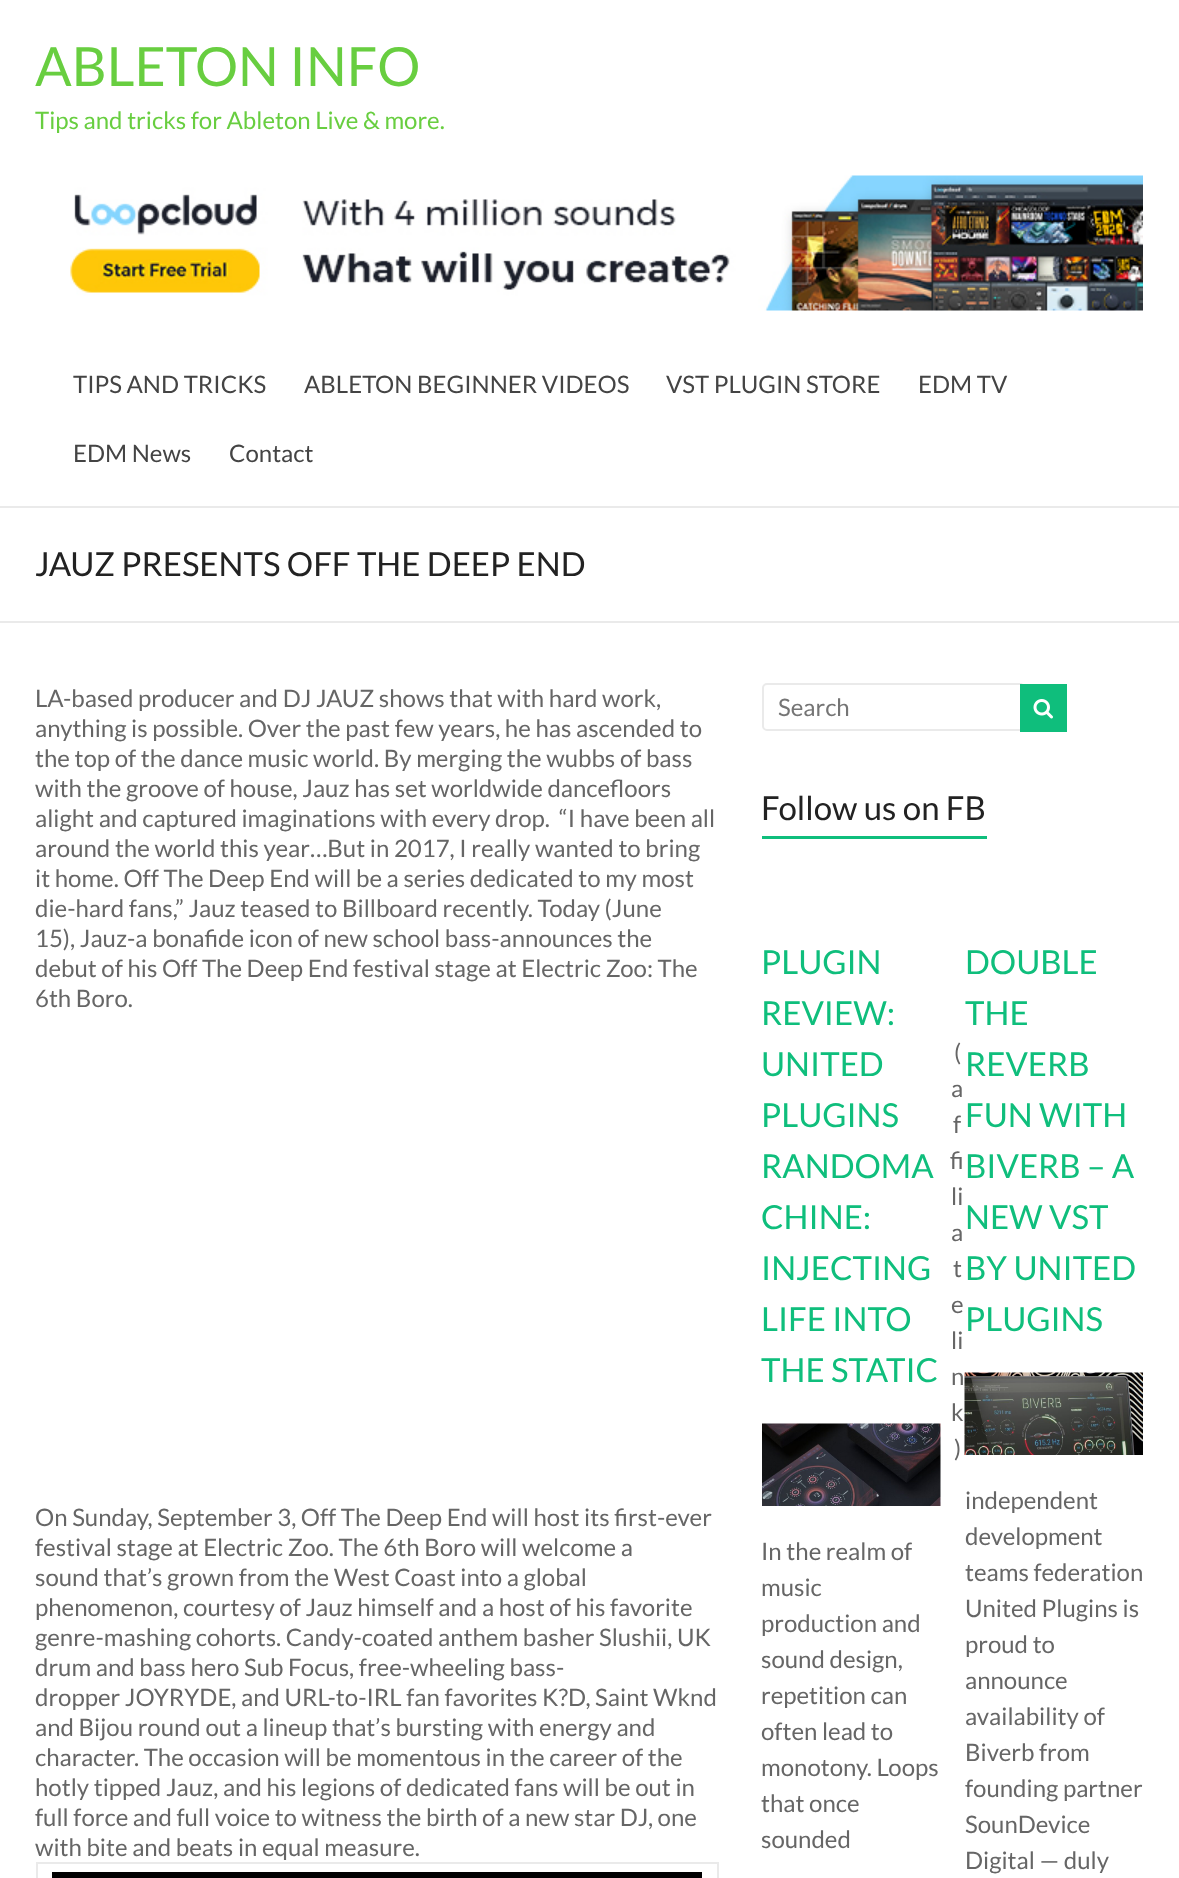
(async () => {
  const canvas = document.querySelector("canvas");
  canvas.width = 1179;
  canvas.height = 1878;
  const ctx = canvas.getContext("2d");
  ctx.miterLimit = 4;
  ctx.fontKerning = "normal";
  async function loadImage(src) {
    const img = new Image();
    img.src = src;
    await img.decode();
    return img;
  }

  ctx.fillStyle = "#ffffff";
  ctx.fillRect(0, 0, 1179, 1878);
  ctx.fillStyle = "#eaeaea";
  ctx.fillRect(0, 506, 1179, 2);
  ctx.drawImage(await loadImage("img/1.png"), 70, 175, 1073, 136);
  for (const [x, y, w, h, color] of [
    [0, 621, 1179, 2, "#eaeaea"],
    [36, 1862, 683, 2, "#eaeaea"],
    [717, 1862, 2, 16, "#eaeaea"],
    [36, 1862, 2, 16, "#eaeaea"],
    [52, 1872, 650, 6, "#000000"],
  ]) {
    ctx.fillStyle = color;
    ctx.fillRect(x, y, w, h);
  }
  ctx.beginPath();
  ctx.roundRect(763, 684, 261, 46, 4);
  ctx.strokeStyle = "#eaeaea";
  ctx.lineWidth = 2;
  ctx.stroke();
  ctx.fillStyle = "#0fbe7c";
  ctx.fillRect(1020, 684, 47, 48);
  ctx.drawImage(await loadImage("img/2.png"), 1033, 699, 20, 20);
  ctx.fillRect(762, 836, 225, 3);
  ctx.drawImage(await loadImage("img/3.png"), 762, 1423, 179, 83);
  ctx.drawImage(await loadImage("img/4.png"), 964, 1372, 179, 83);
  ctx.font = "54px Lato";
  ctx.fillStyle = "#68ce40";
  ctx.fillText("ABLETON INFO", 35, 86);
  ctx.font = "24px Lato";
  ctx.fillText("Tips and tricks for Ableton Live & more.", 35, 129);
  ctx.fillStyle = "#444444";
  for (const [text, x, y] of [
    ["TIPS AND TRICKS", 73, 393],
    ["ABLETON BEGINNER VIDEOS", 304, 393],
    ["VST PLUGIN STORE", 666, 393],
    ["EDM TV", 918, 393],
    ["EDM News", 73, 462],
    ["Contact", 229, 462],
  ]) {
    ctx.fillText(text, x, y);
  }
  ctx.font = "33px Lato";
  ctx.fillStyle = "#222222";
  ctx.fillText("JAUZ PRESENTS OFF THE DEEP END", 35, 576);
  ctx.font = "24px Lato";
  ctx.fillStyle = "#666666";
  for (const [text, x, y] of [
    ["LA-based producer and DJ JAUZ shows that with hard work,", 35, 707],
    ["anything is possible. Over the past few years, he has ascended to", 35, 737],
    ["the top of the dance music world. By merging the wubbs of bass", 35, 767],
    ["with the groove of house, Jauz has set worldwide dancefloors", 35, 797],
    ["alight and captured imaginations with every drop.  “I have been all", 35, 827],
    ["around the world this year…But in 2017, I really wanted to bring", 35, 857],
    ["it home. Off The Deep End will be a series dedicated to my most", 35, 887],
    ["die-hard fans,” Jauz teased to Billboard recently. Today (June", 35, 917],
    ["15), Jauz-a bonafide icon of new school bass-announces the", 35, 947],
    ["debut of his Off The Deep End festival stage at Electric Zoo: The", 35, 977],
    ["6th Boro.", 35, 1007],
    ["On Sunday, September 3, Off The Deep End will host its first-ever", 35, 1526],
    ["festival stage at Electric Zoo. The 6th Boro will welcome a", 35, 1556],
    ["sound that’s grown from the West Coast into a global", 35, 1586],
    ["phenomenon, courtesy of Jauz himself and a host of his favorite", 35, 1616],
    ["genre-mashing cohorts. Candy-coated anthem basher Slushii, UK", 35, 1646],
    ["drum and bass hero Sub Focus, free-wheeling bass-", 35, 1676],
    ["dropper JOYRYDE, and URL-to-IRL fan favorites K?D, Saint Wknd", 35, 1706],
    ["and Bijou round out a lineup that’s bursting with energy and", 35, 1736],
    ["character. The occasion will be momentous in the career of the", 35, 1766],
    ["hotly tipped Jauz, and his legions of dedicated fans will be out in", 35, 1796],
    ["full force and full voice to witness the birth of a new star DJ, one", 35, 1826],
    ["with bite and beats in equal measure.", 35, 1856],
  ]) {
    ctx.fillText(text, x, y);
  }
  ctx.fillStyle = "#757575";
  ctx.fillText("Search", 778, 716);
  ctx.font = "33px Lato";
  ctx.fillStyle = "#222222";
  ctx.fillText("Follow us on FB", 761, 820);
  ctx.fillStyle = "#0fbe7c";
  for (const [text, x, y] of [
    ["PLUGIN", 761, 974],
    ["REVIEW:", 761, 1025],
    ["UNITED", 761, 1076],
    ["PLUGINS", 761, 1127],
    ["RANDOMA", 761, 1178],
    ["CHINE:", 761, 1229],
    ["INJECTING", 761, 1280],
    ["LIFE INTO", 761, 1331],
    ["THE STATIC", 761, 1382],
  ]) {
    ctx.fillText(text, x, y);
  }
  ctx.font = "24px Lato";
  ctx.fillStyle = "#666666";
  for (const [text, x, y] of [
    ["In the realm of", 761, 1560],
    ["music", 761, 1596],
    ["production and", 761, 1632],
    ["sound design,", 761, 1668],
    ["repetition can", 761, 1704],
    ["often lead to", 761, 1740],
    ["monotony. Loops", 761, 1776],
    ["that once", 761, 1812],
    ["sounded", 761, 1848],
  ]) {
    ctx.fillText(text, x, y);
  }
  ctx.font = "33px Lato";
  ctx.fillStyle = "#0fbe7c";
  for (const [text, x, y] of [
    ["DOUBLE", 965, 974],
    ["THE", 965, 1025],
    ["REVERB", 965, 1076],
    ["FUN WITH", 965, 1127],
    ["BIVERB – A", 965, 1178],
    ["NEW VST", 965, 1229],
    ["BY UNITED", 965, 1280],
    ["PLUGINS", 965, 1331],
  ]) {
    ctx.fillText(text, x, y);
  }
  ctx.font = "24px Lato";
  ctx.fillStyle = "#666666";
  for (const [text, x, y] of [
    ["independent", 965, 1509],
    ["development", 965, 1545],
    ["teams federation", 965, 1581],
    ["United Plugins is", 965, 1617],
    ["proud to", 965, 1653],
    ["announce", 965, 1689],
    ["availability of", 965, 1725],
    ["Biverb from", 965, 1761],
    ["founding partner", 965, 1797],
    ["SounDevice", 965, 1833],
    ["Digital — duly", 965, 1869],
    ["(", 954, 1061],
    ["a", 951, 1097],
    ["f", 953, 1133],
    ["fi", 950, 1169],
    ["li", 951, 1205],
    ["a", 951, 1241],
    ["t", 953, 1277],
    ["e", 951, 1313],
    ["li", 951, 1349],
    ["n", 951, 1385],
    ["k", 951, 1421],
    [")", 954, 1457],
  ]) {
    ctx.fillText(text, x, y);
  }
})();
